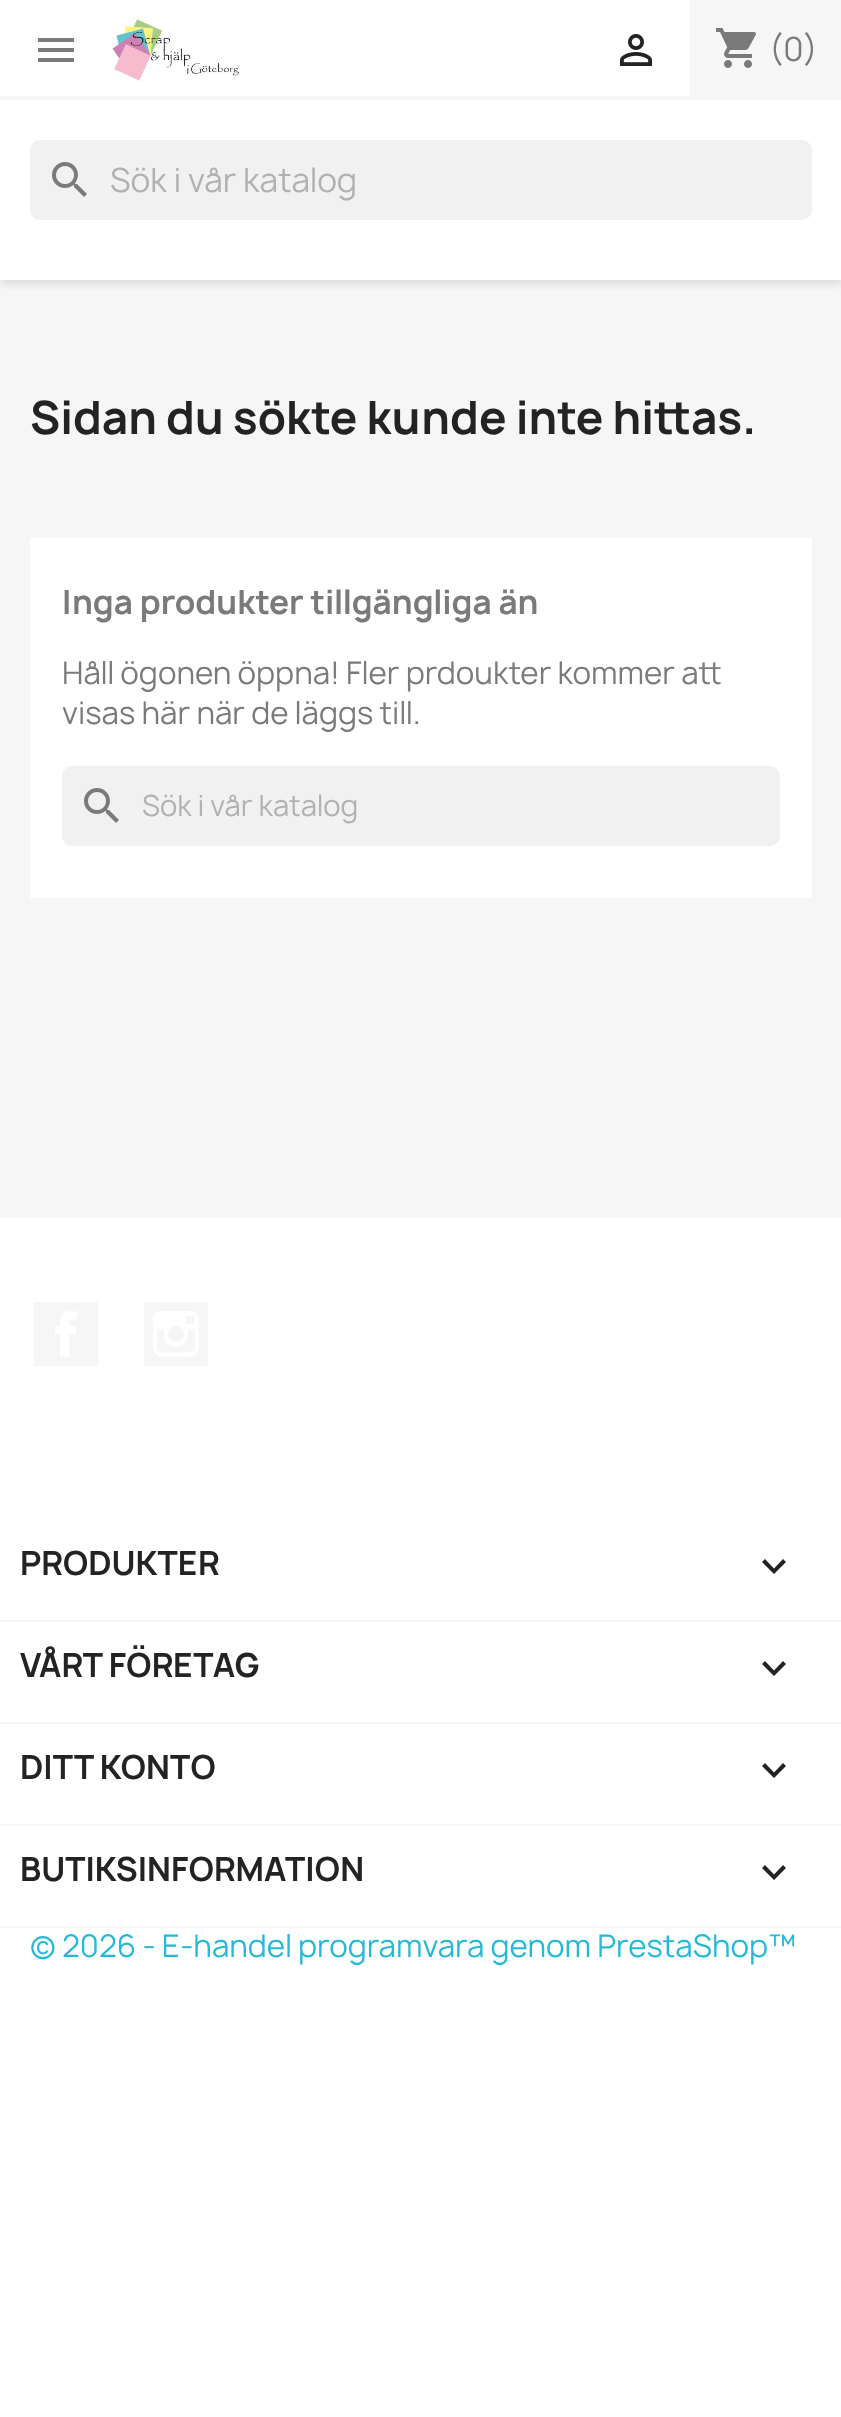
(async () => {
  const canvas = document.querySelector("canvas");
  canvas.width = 841;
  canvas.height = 2417;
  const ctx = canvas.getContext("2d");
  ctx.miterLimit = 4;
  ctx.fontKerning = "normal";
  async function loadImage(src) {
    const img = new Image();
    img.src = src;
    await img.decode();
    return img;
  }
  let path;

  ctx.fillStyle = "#ffffff";
  ctx.fillRect(0, 0, 841, 2417);
  ctx.fillStyle = "#f6f6f6";
  ctx.fillRect(0, 280, 841, 938);
  ctx.save();
  ctx.beginPath();
  ctx.rect(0, 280, 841, 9);
  ctx.clip();
  ctx.fillStyle = "rgba(0, 0, 0, 0.11)";
  ctx.filter = "blur(5px)";
  ctx.beginPath();
  ctx.rect(0, 4, 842, 280);
  ctx.fill();
  ctx.filter = "none";
  ctx.restore();
  ctx.fillRect(0, 96, 841, 4);
  ctx.fillStyle = "#7a7a7a";
  path = new Path2D("M38 38H74V42H38ZM38 52V48H74V52ZM38 62V58H74V62Z");
  ctx.fill(path);
  ctx.drawImage(await loadImage("img/1.png"), 112, 18, 128, 63);
  ctx.drawImage(await loadImage("img/2.png"), 619, 34, 34, 32);
  ctx.fillStyle = "#f6f6f6";
  ctx.fillRect(690, 0, 151, 96);
  ctx.drawImage(await loadImage("img/3.png"), 716, 28, 40, 40);
  ctx.fillStyle = "#f1f1f1";
  ctx.beginPath();
  ctx.roundRect(30, 140, 782, 80, 10);
  ctx.fill();
  ctx.drawImage(await loadImage("img/4.png"), 52, 162, 35, 35);
  ctx.fillStyle = "#ffffff";
  ctx.fillRect(30, 538, 782, 360);
  ctx.fillStyle = "#f1f1f1";
  ctx.beginPath();
  ctx.roundRect(62, 766, 718, 80, 10);
  ctx.fill();
  ctx.drawImage(await loadImage("img/4.png"), 84, 788, 35, 35);
  ctx.fillStyle = "#f6f6f6";
  ctx.fillRect(34, 1302, 64, 64);
  ctx.drawImage(await loadImage("img/5.png"), 55, 1311, 22, 46);
  ctx.fillRect(144, 1302, 64, 64);
  ctx.drawImage(await loadImage("img/6.png"), 153, 1311, 46, 46);
  ctx.fillRect(0, 1620, 841, 2);
  ctx.fillStyle = "#232323";
  path = new Path2D("M765 1559L774 1568.5L783 1559L786 1562L774 1574L762 1562Z");
  ctx.fill(path);
  ctx.fillStyle = "#f6f6f6";
  ctx.fillRect(0, 1722, 841, 2);
  ctx.fillStyle = "#232323";
  path = new Path2D("M765 1661L774 1670.5L783 1661L786 1664L774 1676L762 1664Z");
  ctx.fill(path);
  ctx.fillStyle = "#f6f6f6";
  ctx.fillRect(0, 1824, 841, 2);
  ctx.fillStyle = "#232323";
  path = new Path2D("M765 1763L774 1772.5L783 1763L786 1766L774 1778L762 1766Z");
  ctx.fill(path);
  ctx.fillStyle = "#f6f6f6";
  ctx.fillRect(0, 1926, 841, 2);
  ctx.fillStyle = "#232323";
  path = new Path2D("M765 1865L774 1874.5L783 1865L786 1868L774 1880L762 1868Z");
  ctx.fill(path);
  ctx.font = "32px Manrope";
  ctx.fillStyle = "#7a7a7a";
  ctx.fillText("(0)", 769, 61);
  ctx.fillStyle = "#b1b1b1";
  ctx.fillText("Sök i vår katalog", 110, 192);
  ctx.font = "bold 44px Manrope";
  ctx.fillStyle = "#232323";
  ctx.fillText("Sidan du sökte kunde inte hittas.", 30, 434);
  ctx.font = "bold 32px Manrope";
  ctx.fillStyle = "#7a7a7a";
  ctx.fillText("Inga produkter tillgängliga än", 62, 614);
  ctx.font = "30px Manrope";
  ctx.fillText("Håll ögonen öppna! Fler prdoukter kommer att", 62, 684);
  ctx.fillText("visas här när de läggs till.", 62, 724);
  ctx.font = "28px Manrope";
  ctx.fillStyle = "#b1b1b1";
  ctx.fillText("Sök i vår katalog", 142, 816);
  ctx.font = "bold 32px Manrope";
  ctx.fillStyle = "#232323";
  for (const [text, x, y] of [
    ["PRODUKTER", 20, 1575],
    ["VÅRT FÖRETAG", 20, 1677],
    ["DITT KONTO", 20, 1779],
    ["BUTIKSINFORMATION", 20, 1881],
  ]) {
    ctx.fillText(text, x, y);
  }
  ctx.font = "30px Manrope";
  ctx.fillStyle = "#24b9d7";
  ctx.fillText("© 2026 - E-handel programvara genom PrestaShop™", 30, 1957);
})();
